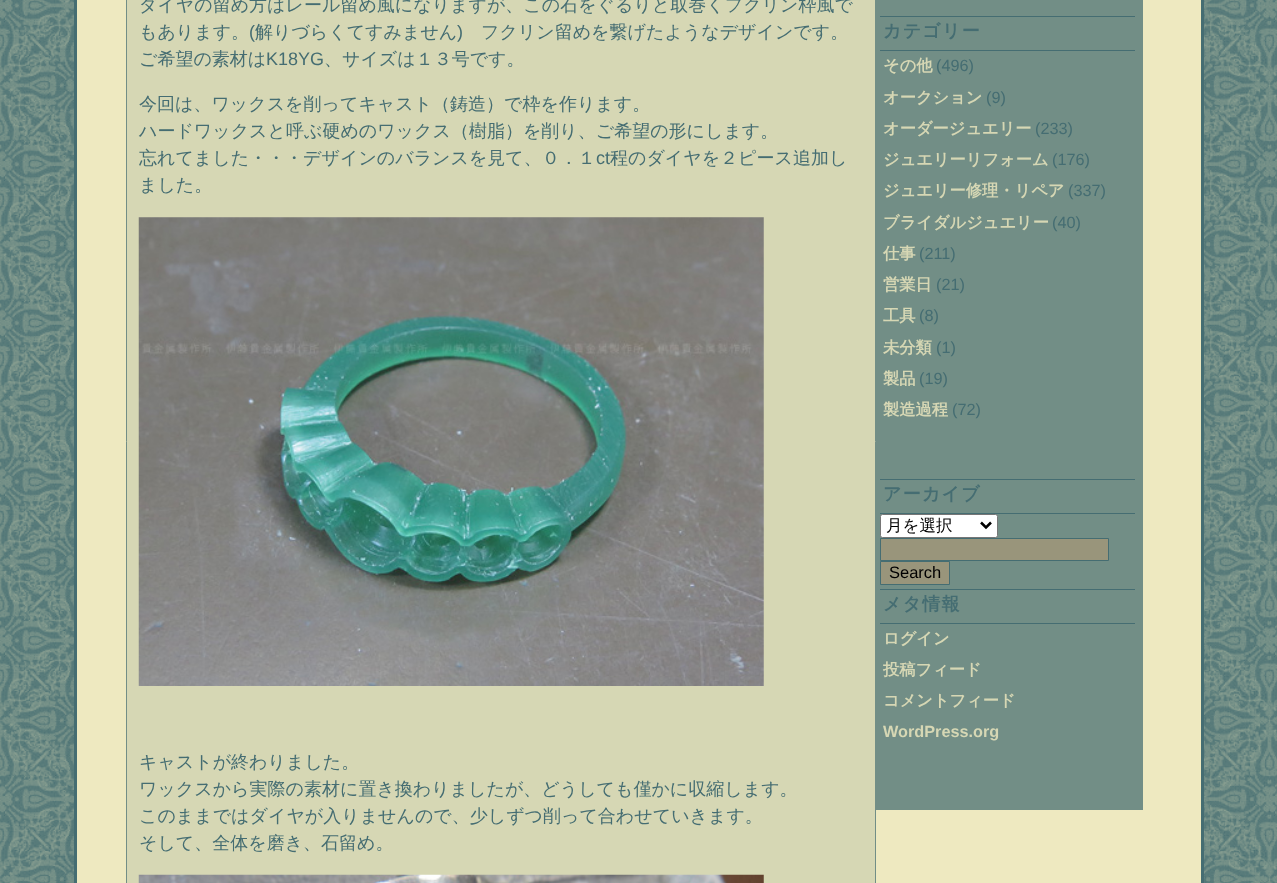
(async () => {
  const canvas = document.querySelector("canvas");
  canvas.width = 1277;
  canvas.height = 883;
  const ctx = canvas.getContext("2d");
  ctx.miterLimit = 4;
  ctx.fontKerning = "normal";
  async function loadImage(src) {
    const img = new Image();
    img.src = src;
    await img.decode();
    return img;
  }
  let path;

  ctx.fillStyle = "#ffffff";
  ctx.fillRect(0, 0, 1277, 883);
  ctx.drawImage(await loadImage("img/1.png"), 0, 0, 1277, 883);
  for (const [x, y, w, h, color] of [
    [77, 0, 1124, 883, "#eee9c0"],
    [1201, 0, 3, 883, "#456d72"],
    [74, 0, 3, 883, "#456d72"],
  ]) {
    ctx.fillStyle = color;
    ctx.fillRect(x, y, w, h);
  }
  ctx.fillStyle = "#d6d7b4";
  ctx.beginPath();
  ctx.rect(126.5, -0.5, 749, 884);
  ctx.fill();
  ctx.strokeStyle = "#728e86";
  ctx.stroke();
  ctx.drawImage(await loadImage("img/2.png"), 138, 217, 626, 469);
  ctx.drawImage(await loadImage("img/3.png"), 138, 874, 626, 9);
  for (const [x, y, w, h, color] of [
    [876, 0, 267, 810, "#728e86"],
    [880, 16, 255, 1, "#456d72"],
    [880, 50, 255, 1, "#456d72"],
    [880, 479, 255, 1, "#456d72"],
    [880, 513, 255, 1, "#456d72"],
  ]) {
    ctx.fillStyle = color;
    ctx.fillRect(x, y, w, h);
  }
  ctx.fillStyle = "#ffffff";
  ctx.beginPath();
  ctx.roundRect(880.5, 514.5, 117, 23, 2);
  ctx.fill();
  ctx.strokeStyle = "#767676";
  ctx.stroke();
  path = new Path2D("M981 522.5L986 527.5L991 522.5");
  ctx.strokeStyle = "#000000";
  ctx.lineWidth = 2.5;
  ctx.stroke(path);
  ctx.fillStyle = "#99957b";
  ctx.beginPath();
  ctx.rect(880.5, 538.5, 228, 22);
  ctx.fill();
  ctx.strokeStyle = "#456d72";
  ctx.lineWidth = 1;
  ctx.stroke();
  ctx.beginPath();
  ctx.rect(880.5, 561.5, 69, 23);
  ctx.fill();
  ctx.stroke();
  ctx.fillStyle = "#456d72";
  ctx.fillRect(880, 589, 255, 1);
  ctx.fillRect(880, 623, 255, 1);
  ctx.font = "500 18px WenQuanYi Zen Hei";
  ctx.fillText("ダイヤの留め方はレール留め風になりますが、この石をぐるりと取巻くフクリン枠風で", 139, 11);
  ctx.fillText("もあります。", 139, 38);
  ctx.font = "18px Liberation Sans";
  ctx.fillText("(", 249, 38);
  ctx.font = "500 18px WenQuanYi Zen Hei";
  ctx.fillText("解りづらくてすみません", 255, 38);
  ctx.font = "18px Liberation Sans";
  ctx.fillText(")", 457, 38);
  ctx.font = "500 18px WenQuanYi Zen Hei";
  ctx.fillText("フクリン留めを繋げたようなデザインです。", 481, 38);
  ctx.fillText("ご希望の素材は", 139, 65);
  ctx.font = "18px Liberation Sans";
  ctx.fillText("K18YG", 266, 65);
  ctx.font = "500 18px WenQuanYi Zen Hei";
  for (const [text, x, y] of [
    ["、サイズは１３号です。", 324, 65],
    ["今回は、ワックスを削ってキャスト（鋳造）で枠を作ります。", 139, 110],
    ["ハードワックスと呼ぶ硬めのワックス（樹脂）を削り、ご希望の形にします。", 139, 137],
    ["忘れてました・・・デザインのバランスを見て、０．１", 139, 164],
  ]) {
    ctx.fillText(text, x, y);
  }
  ctx.font = "18px Liberation Sans";
  ctx.fillText("ct", 596, 164);
  ctx.font = "500 18px WenQuanYi Zen Hei";
  for (const [text, x, y] of [
    ["程のダイヤを２ピース追加し", 610, 164],
    ["ました。", 139, 191],
    ["キャストが終わりました。", 139, 768],
    ["ワックスから実際の素材に置き換わりましたが、どうしても僅かに収縮します。", 139, 795],
    ["このままではダイヤが入りませんので、少しずつ削って合わせていきます。", 139, 822],
    ["そして、全体を磨き、石留め。", 139, 849],
  ]) {
    ctx.fillText(text, x, y);
  }
  ctx.letterSpacing = "1.25px";
  ctx.font = "bold 18px WenQuanYi Zen Hei";
  ctx.fillText("カテゴリー", 883, 37);
  ctx.letterSpacing = "0px";
  ctx.font = "bold 16.25px WenQuanYi Zen Hei";
  ctx.fillStyle = "#d6d7b4";
  ctx.fillText("その他", 883, 71);
  ctx.font = "16.25px Liberation Sans";
  ctx.fillStyle = "#456d72";
  ctx.fillText("(496)", 936, 71);
  ctx.font = "bold 16.25px WenQuanYi Zen Hei";
  ctx.fillStyle = "#d6d7b4";
  ctx.fillText("オークション", 883, 103);
  ctx.font = "16.25px Liberation Sans";
  ctx.fillStyle = "#456d72";
  ctx.fillText("(9)", 986, 103);
  ctx.font = "bold 16.25px WenQuanYi Zen Hei";
  ctx.fillStyle = "#d6d7b4";
  ctx.fillText("オーダージュエリー", 883, 134);
  ctx.font = "16.25px Liberation Sans";
  ctx.fillStyle = "#456d72";
  ctx.fillText("(233)", 1035, 134);
  ctx.font = "bold 16.25px WenQuanYi Zen Hei";
  ctx.fillStyle = "#d6d7b4";
  ctx.fillText("ジュエリーリフォーム", 883, 165);
  ctx.font = "16.25px Liberation Sans";
  ctx.fillStyle = "#456d72";
  ctx.fillText("(176)", 1052, 165);
  ctx.font = "bold 16.25px WenQuanYi Zen Hei";
  ctx.fillStyle = "#d6d7b4";
  ctx.fillText("ジュエリー修理・リペア", 883, 196);
  ctx.font = "16.25px Liberation Sans";
  ctx.fillStyle = "#456d72";
  ctx.fillText("(337)", 1068, 196);
  ctx.font = "bold 16.25px WenQuanYi Zen Hei";
  ctx.fillStyle = "#d6d7b4";
  ctx.fillText("ブライダルジュエリー", 883, 228);
  ctx.font = "16.25px Liberation Sans";
  ctx.fillStyle = "#456d72";
  ctx.fillText("(40)", 1052, 228);
  ctx.font = "bold 16.25px WenQuanYi Zen Hei";
  ctx.fillStyle = "#d6d7b4";
  ctx.fillText("仕事", 883, 259);
  ctx.font = "16.25px Liberation Sans";
  ctx.fillStyle = "#456d72";
  ctx.fillText("(211)", 919, 259);
  ctx.font = "bold 16.25px WenQuanYi Zen Hei";
  ctx.fillStyle = "#d6d7b4";
  ctx.fillText("営業日", 883, 290);
  ctx.font = "16.25px Liberation Sans";
  ctx.fillStyle = "#456d72";
  ctx.fillText("(21)", 936, 290);
  ctx.font = "bold 16.25px WenQuanYi Zen Hei";
  ctx.fillStyle = "#d6d7b4";
  ctx.fillText("工具", 883, 321);
  ctx.font = "16.25px Liberation Sans";
  ctx.fillStyle = "#456d72";
  ctx.fillText("(8)", 919, 321);
  ctx.font = "bold 16.25px WenQuanYi Zen Hei";
  ctx.fillStyle = "#d6d7b4";
  ctx.fillText("未分類", 883, 353);
  ctx.font = "16.25px Liberation Sans";
  ctx.fillStyle = "#456d72";
  ctx.fillText("(1)", 936, 353);
  ctx.font = "bold 16.25px WenQuanYi Zen Hei";
  ctx.fillStyle = "#d6d7b4";
  ctx.fillText("製品", 883, 384);
  ctx.font = "16.25px Liberation Sans";
  ctx.fillStyle = "#456d72";
  ctx.fillText("(19)", 919, 384);
  ctx.font = "bold 16.25px WenQuanYi Zen Hei";
  ctx.fillStyle = "#d6d7b4";
  ctx.fillText("製造過程", 883, 415);
  ctx.font = "16.25px Liberation Sans";
  ctx.fillStyle = "#456d72";
  ctx.fillText("(72)", 952, 415);
  ctx.letterSpacing = "1.25px";
  ctx.font = "bold 18px WenQuanYi Zen Hei";
  ctx.fillText("アーカイブ", 883, 500);
  ctx.letterSpacing = "0px";
  ctx.font = "500 16.5px WenQuanYi Zen Hei";
  ctx.fillStyle = "#000000";
  ctx.fillText("月を選択", 886, 531);
  ctx.font = "16.5px Liberation Sans";
  ctx.fillText("Search", 889, 578);
  ctx.letterSpacing = "1.25px";
  ctx.font = "bold 18px WenQuanYi Zen Hei";
  ctx.fillStyle = "#456d72";
  ctx.fillText("メタ情報", 883, 610);
  ctx.letterSpacing = "0px";
  ctx.font = "bold 16.25px WenQuanYi Zen Hei";
  ctx.fillStyle = "#d6d7b4";
  for (const [text, x, y] of [
    ["ログイン", 883, 644],
    ["投稿フィード", 883, 675],
    ["コメントフィード", 883, 706],
  ]) {
    ctx.fillText(text, x, y);
  }
  ctx.font = "bold 16.25px Liberation Sans";
  ctx.fillText("WordPress.org", 883, 737);
})();
